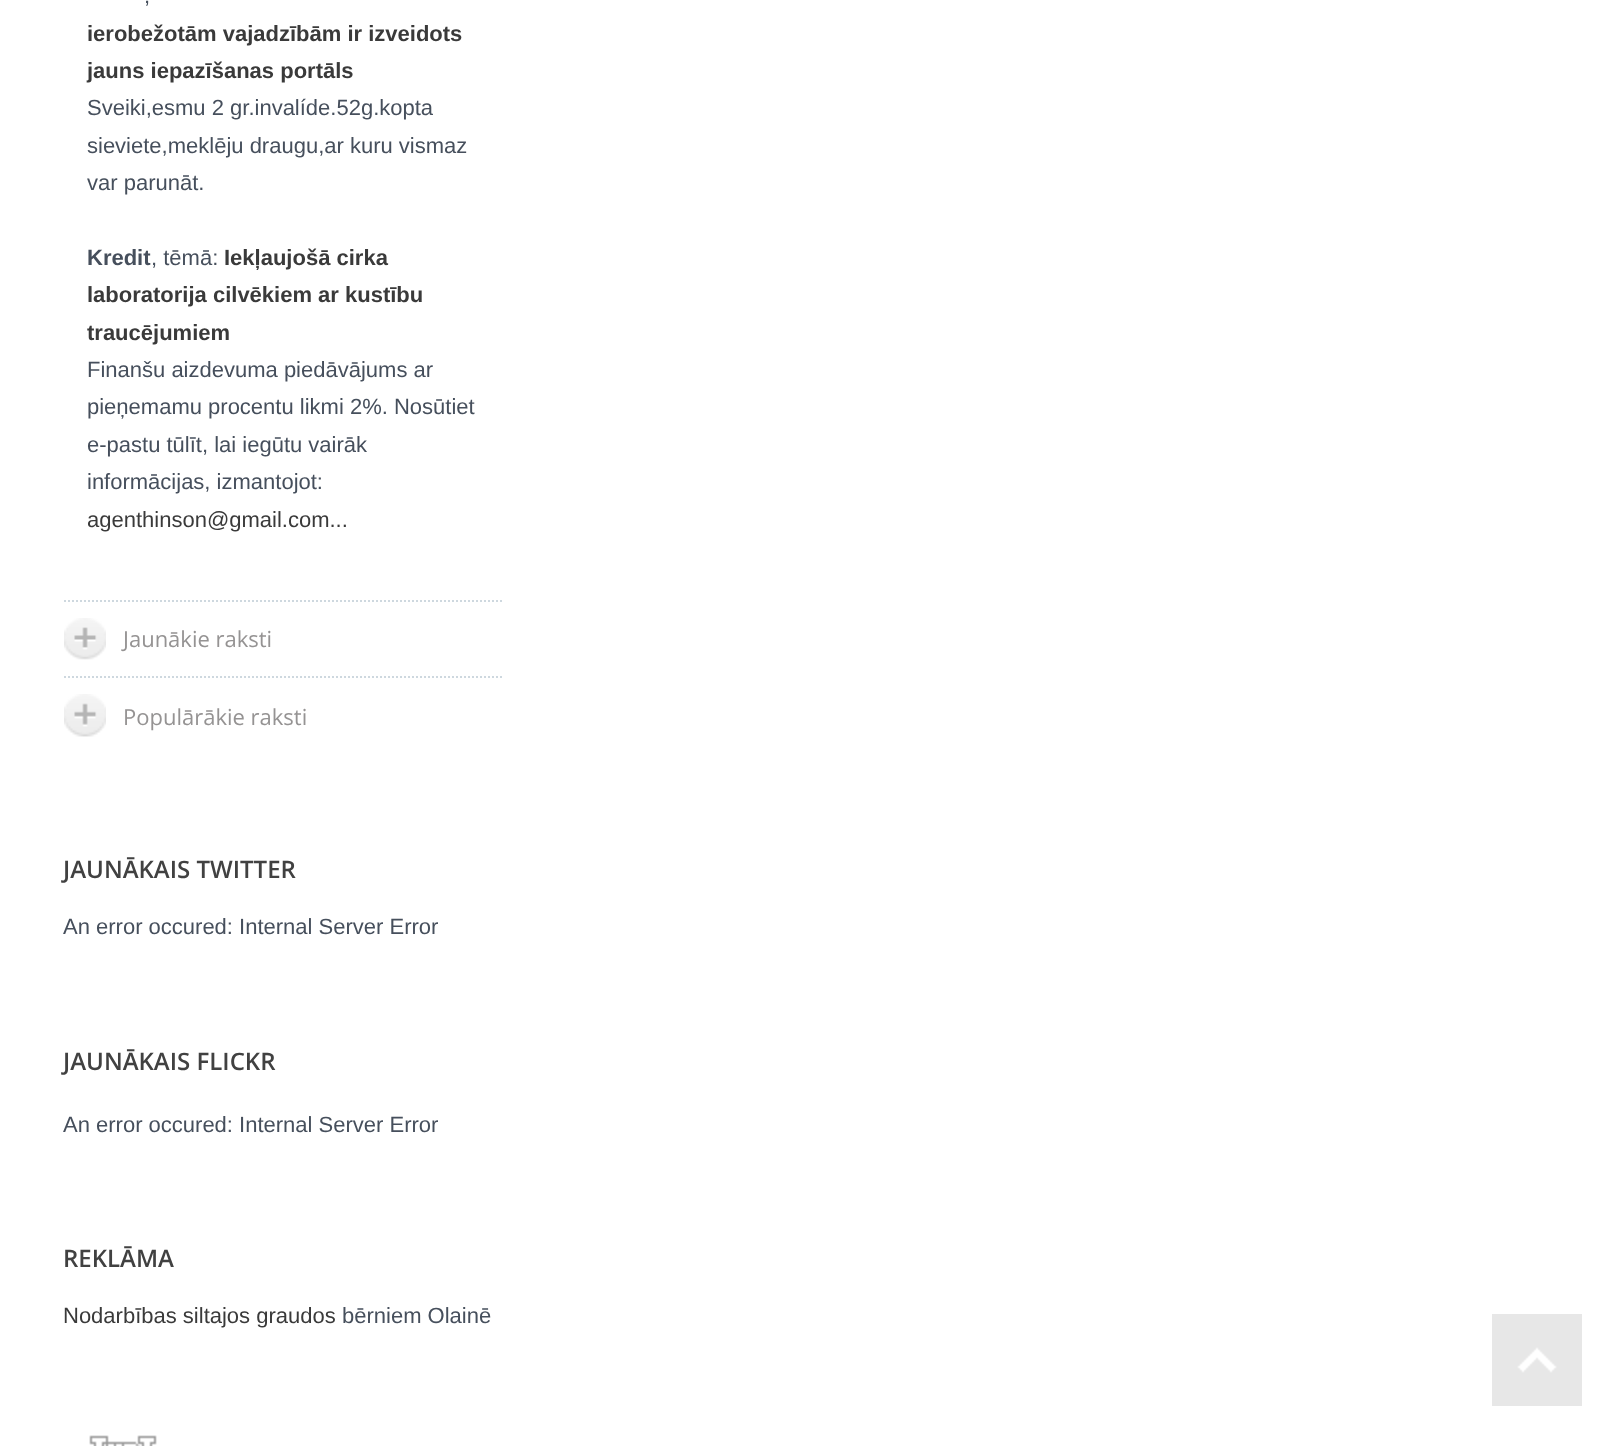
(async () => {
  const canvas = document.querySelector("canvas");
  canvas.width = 1622;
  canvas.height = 1446;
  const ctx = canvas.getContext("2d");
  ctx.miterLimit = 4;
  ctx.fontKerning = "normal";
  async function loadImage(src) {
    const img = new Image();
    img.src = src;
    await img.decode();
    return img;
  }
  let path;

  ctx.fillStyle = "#ffffff";
  ctx.fillRect(0, 0, 1622, 1446);
  path = new Path2D("M64 601H504");
  ctx.strokeStyle = "#ced8df";
  ctx.lineWidth = 2;
  ctx.setLineDash([2, 2]);
  ctx.stroke(path);
  ctx.drawImage(await loadImage("img/1.png"), 64, 618, 42, 42);
  path = new Path2D("M64 677H504");
  ctx.stroke(path);
  ctx.drawImage(await loadImage("img/2.png"), 64, 694, 42, 43);
  ctx.drawImage(await loadImage("img/3.png"), 89, 1435, 68, 11);
  ctx.fillStyle = "#e7e7e7";
  ctx.fillRect(1492, 1314, 90, 92);
  ctx.drawImage(await loadImage("img/4.png"), 1517, 1347, 40, 26);
  ctx.font = "22px Liberation Sans";
  ctx.fillStyle = "#464f5c";
  ctx.fillText(",", 144, 3);
  ctx.font = "bold 22px Liberation Sans";
  ctx.fillStyle = "#3a3a3a";
  ctx.fillText("ierobežotām vajadzībām ir izveidots", 87, 41);
  ctx.fillText("jauns iepazīšanas portāls", 87, 78);
  ctx.font = "22px Liberation Sans";
  ctx.fillStyle = "#464f5c";
  for (const [text, x, y] of [
    ["Sveiki,esmu 2 gr.invalíde.52g.kopta", 87, 115],
    ["sieviete,meklēju draugu,ar kuru vismaz", 87, 153],
    ["var parunāt.", 87, 190],
  ]) {
    ctx.fillText(text, x, y);
  }
  ctx.font = "bold 22px Liberation Sans";
  ctx.fillText("Kredit", 87, 265);
  ctx.font = "22px Liberation Sans";
  ctx.fillText(", tēmā:", 151, 265);
  ctx.font = "bold 22px Liberation Sans";
  ctx.fillStyle = "#3a3a3a";
  for (const [text, x, y] of [
    ["Iekļaujošā cirka", 224, 265],
    ["laboratorija cilvēkiem ar kustību", 87, 302],
    ["traucējumiem", 87, 340],
  ]) {
    ctx.fillText(text, x, y);
  }
  ctx.font = "22px Liberation Sans";
  ctx.fillStyle = "#464f5c";
  for (const [text, x, y] of [
    ["Finanšu aizdevuma piedāvājums ar", 87, 377],
    ["pieņemamu procentu likmi 2%. Nosūtiet", 87, 414],
    ["e-pastu tūlīt, lai iegūtu vairāk", 87, 452],
    ["informācijas, izmantojot:", 87, 489],
  ]) {
    ctx.fillText(text, x, y);
  }
  ctx.fillStyle = "#3a3a3a";
  ctx.fillText("agenthinson@gmail.com...", 87, 527);
  ctx.font = "22px Open Sans";
  ctx.fillStyle = "#959393";
  ctx.fillText("Jaunākie raksti", 123, 647);
  ctx.fillText("Populārākie raksti", 123, 725);
  ctx.font = "600 24px Open Sans";
  ctx.fillStyle = "#414141";
  ctx.fillText("JAUNĀKAIS TWITTER", 63, 878);
  ctx.font = "22px Liberation Sans";
  ctx.fillStyle = "#464f5c";
  ctx.fillText("An error occured: Internal Server Error", 63, 934);
  ctx.font = "600 24px Open Sans";
  ctx.fillStyle = "#414141";
  ctx.fillText("JAUNĀKAIS FLICKR", 63, 1070);
  ctx.font = "22px Liberation Sans";
  ctx.fillStyle = "#464f5c";
  ctx.fillText("An error occured: Internal Server Error", 63, 1132);
  ctx.font = "600 24px Open Sans";
  ctx.fillStyle = "#414141";
  ctx.fillText("REKLĀMA", 63, 1267);
  ctx.font = "22px Liberation Sans";
  ctx.fillStyle = "#3a3a3a";
  ctx.fillText("Nodarbības siltajos graudos", 63, 1323);
  ctx.fillStyle = "#464f5c";
  ctx.fillText("bērniem Olainē", 342, 1323);
})();
